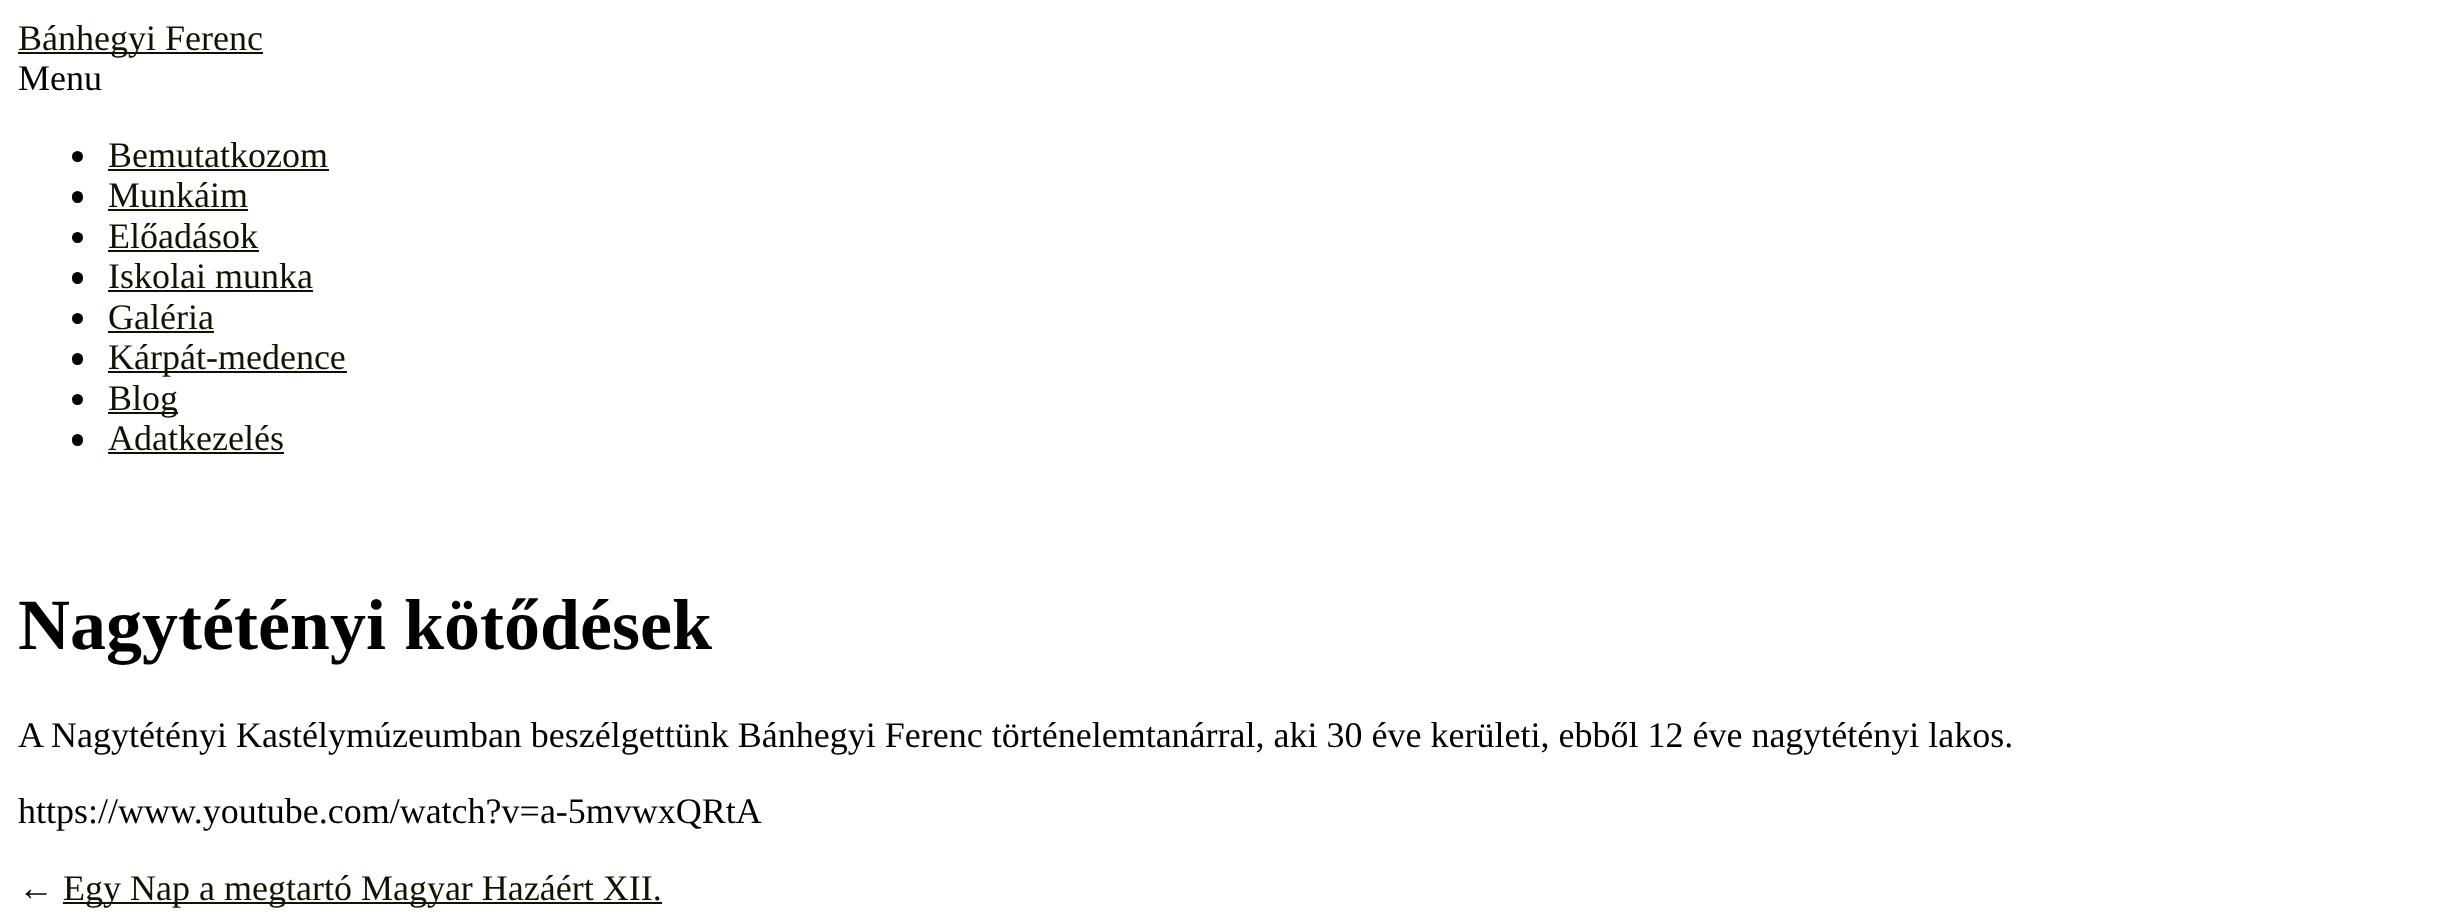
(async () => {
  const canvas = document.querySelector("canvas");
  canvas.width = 2456;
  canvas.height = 923;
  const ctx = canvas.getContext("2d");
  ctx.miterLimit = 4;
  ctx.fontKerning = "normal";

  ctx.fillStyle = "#ffffff";
  ctx.fillRect(0, 0, 2456, 923);
  ctx.fillStyle = "#0d1400";
  ctx.fillRect(18, 52, 245, 2);
  ctx.fillStyle = "#000000";
  ctx.beginPath();
  ctx.arc(77.5, 156.5, 5.5, 0, Math.PI * 2);
  ctx.fill();
  ctx.fillStyle = "#0d1400";
  ctx.fillRect(108, 169, 221, 2);
  ctx.fillStyle = "#000000";
  ctx.beginPath();
  ctx.roundRect(72, 191, 11, 12, 5.5);
  ctx.fill();
  ctx.fillStyle = "#0d1400";
  ctx.fillRect(108, 209, 140, 2);
  ctx.fillStyle = "#000000";
  ctx.beginPath();
  ctx.arc(77.5, 237.5, 5.5, 0, Math.PI * 2);
  ctx.fill();
  ctx.fillStyle = "#0d1400";
  ctx.fillRect(108, 250, 151, 2);
  ctx.fillStyle = "#000000";
  ctx.beginPath();
  ctx.roundRect(72, 272, 11, 12, 5.5);
  ctx.fill();
  ctx.fillStyle = "#0d1400";
  ctx.fillRect(108, 290, 205, 2);
  ctx.fillStyle = "#000000";
  ctx.beginPath();
  ctx.arc(77.5, 318.5, 5.5, 0, Math.PI * 2);
  ctx.fill();
  ctx.fillStyle = "#0d1400";
  ctx.fillRect(108, 331, 106, 2);
  ctx.fillStyle = "#000000";
  ctx.beginPath();
  ctx.roundRect(72, 353, 11, 12, 5.5);
  ctx.fill();
  ctx.fillStyle = "#0d1400";
  ctx.fillRect(108, 371, 239, 2);
  ctx.fillStyle = "#000000";
  ctx.beginPath();
  ctx.arc(77.5, 399.5, 5.5, 0, Math.PI * 2);
  ctx.fill();
  ctx.fillStyle = "#0d1400";
  ctx.fillRect(108, 412, 70, 2);
  ctx.fillStyle = "#000000";
  ctx.beginPath();
  ctx.roundRect(72, 434, 11, 12, 5.5);
  ctx.fill();
  ctx.fillStyle = "#0d1400";
  ctx.fillRect(108, 452, 176, 2);
  ctx.fillRect(63, 902, 599, 2);
  ctx.font = "36px Liberation Serif";
  ctx.fillText("Bánhegyi Ferenc", 18, 50);
  ctx.fillStyle = "#000000";
  ctx.fillText("Menu", 18, 90);
  ctx.fillStyle = "#0d1400";
  for (const [text, x, y] of [
    ["Bemutatkozom", 108, 167],
    ["Munkáim", 108, 207],
    ["Előadások", 108, 248],
    ["Iskolai munka", 108, 288],
    ["Galéria", 108, 329],
    ["Kárpát-medence", 108, 369],
    ["Blog", 108, 410],
    ["Adatkezelés", 108, 450],
  ]) {
    ctx.fillText(text, x, y);
  }
  ctx.font = "bold 72px Liberation Serif";
  ctx.fillStyle = "#000000";
  ctx.fillText("Nagytétényi kötődések", 18, 649);
  ctx.font = "36px Liberation Serif";
  for (const [text, x, y] of [
    ["A Nagytétényi Kastélymúzeumban beszélgettünk Bánhegyi Ferenc történelemtanárral, aki 30 éve kerületi, ebből 12 éve nagytétényi lakos.", 18, 747],
    ["https://www.youtube.com/watch?v=a-5mvwxQRtA", 18, 823],
    ["←", 18, 900],
  ]) {
    ctx.fillText(text, x, y);
  }
  ctx.fillStyle = "#0d1400";
  ctx.fillText("Egy Nap a megtartó Magyar Hazáért XII.", 63, 900);
})();
